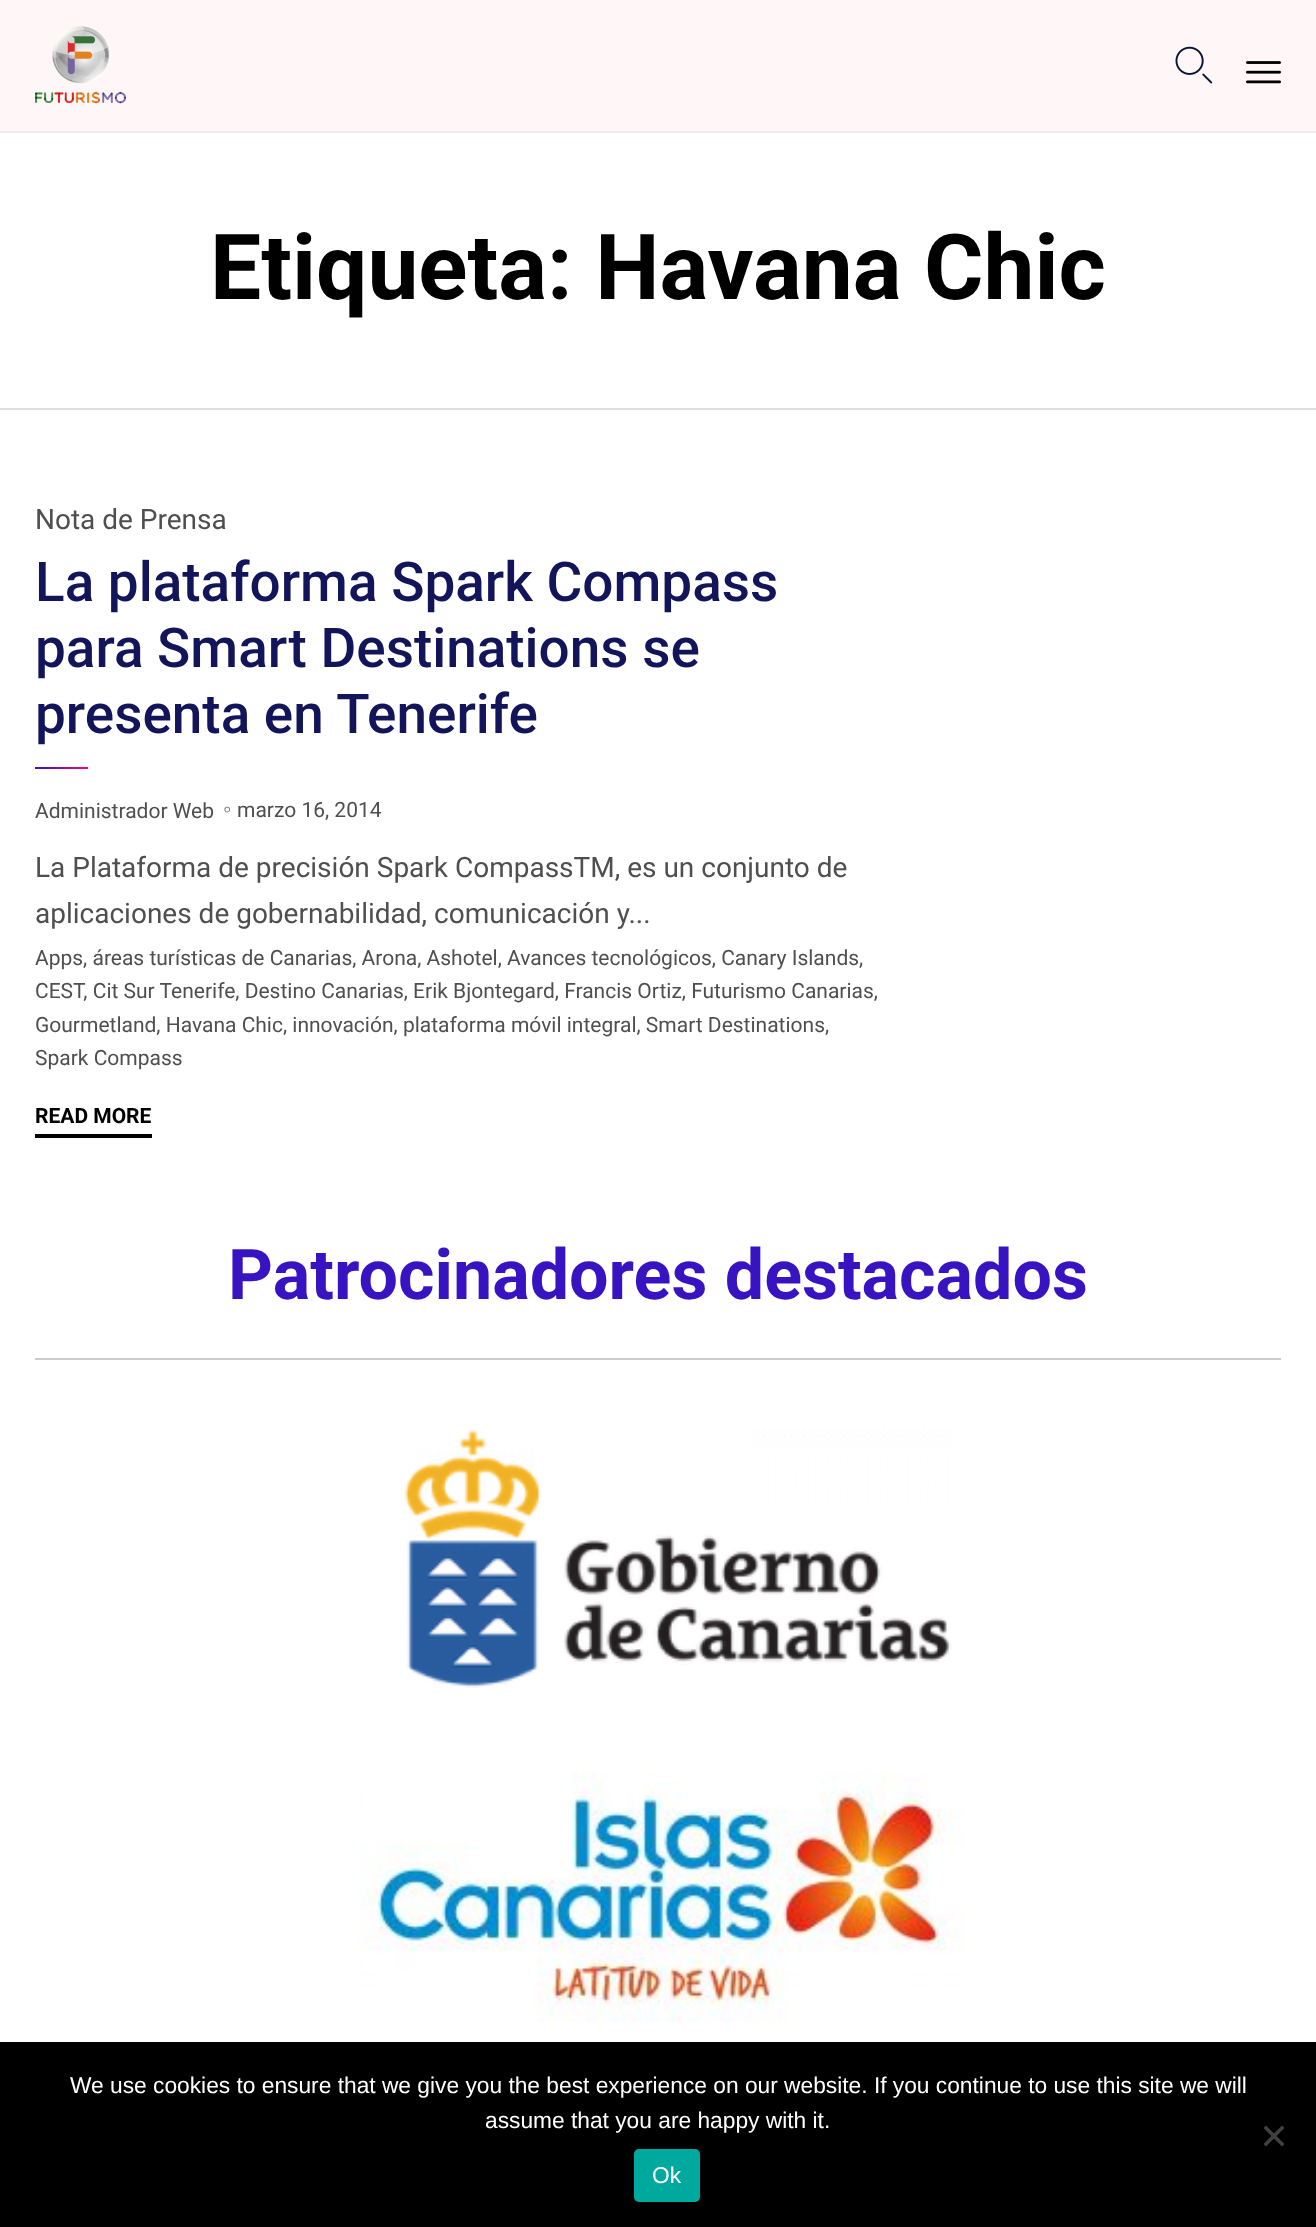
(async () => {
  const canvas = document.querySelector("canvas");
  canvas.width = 1316;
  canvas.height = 2227;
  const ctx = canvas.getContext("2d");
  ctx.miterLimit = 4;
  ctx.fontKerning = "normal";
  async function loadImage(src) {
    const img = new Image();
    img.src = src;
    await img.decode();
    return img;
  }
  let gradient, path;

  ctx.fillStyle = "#ffffff";
  ctx.fillRect(0, 0, 1316, 2227);
  ctx.fillStyle = "#ebebeb";
  ctx.fillRect(0, 131, 1316, 2);
  ctx.fillStyle = "#fff7f7";
  ctx.fillRect(0, 0, 1316, 131);
  ctx.drawImage(await loadImage("img/1.png"), 35, 26, 91, 78);
  ctx.drawImage(await loadImage("img/2.png"), 1175, 46, 38, 38);
  ctx.drawImage(await loadImage("img/3.png"), 1246, 61, 35, 23);
  ctx.fillStyle = "#dfdfdf";
  ctx.fillRect(0, 408, 1316, 2);
  gradient = ctx.createLinearGradient(35, 767, 88, 767);
  gradient.addColorStop(0, "#3813c2");
  gradient.addColorStop(1, "#f20487");
  ctx.fillStyle = gradient;
  ctx.fillRect(35, 767, 53, 2);
  ctx.fillStyle = "#000000";
  ctx.fillRect(35, 1134, 117, 4);
  ctx.fillStyle = "#cccccc";
  ctx.fillRect(35, 1358, 1246, 2);
  ctx.drawImage(await loadImage("img/4.png"), 404, 1429, 548, 259);
  ctx.drawImage(await loadImage("img/5.png"), 360, 1772, 604, 251);
  ctx.fillStyle = "#000000";
  ctx.fillRect(0, 2042, 1316, 185);
  ctx.fillStyle = "#404040";
  path = new Path2D("M1282 2125.5L1284.5 2128L1266 2146.5L1263.5 2144Z");
  ctx.fill(path);
  path = new Path2D("M1263.5 2128L1266 2125.5L1284.5 2144L1282 2146.5Z");
  ctx.fill(path);
  ctx.fillStyle = "#00a99d";
  ctx.beginPath();
  ctx.roundRect(634, 2149, 66, 53, 5);
  ctx.fill();
  ctx.font = "bold 91px Roboto";
  ctx.fillStyle = "#000000";
  ctx.fillText("Etiqueta: Havana Chic", 210, 299);
  ctx.font = "28px Roboto";
  ctx.fillStyle = "#4f4f50";
  ctx.fillText("Nota de Prensa", 35, 529);
  ctx.font = "500 54.9px Roboto";
  ctx.fillStyle = "#121559";
  for (const [text, x, y] of [
    ["La plataforma Spark Compass", 35, 601],
    ["para Smart Destinations se", 35, 667],
    ["presenta en Tenerife", 35, 733],
  ]) {
    ctx.fillText(text, x, y);
  }
  ctx.font = "21px Roboto";
  ctx.fillStyle = "#4f4f50";
  ctx.fillText("Administrador Web", 35, 818);
  ctx.font = "24px Liberation Serif";
  ctx.fillStyle = "#727273";
  ctx.fillText("◦", 223, 817);
  ctx.font = "21px Roboto";
  ctx.fillStyle = "#4f4f50";
  ctx.fillText("marzo 16, 2014", 237, 817);
  ctx.font = "28px Roboto";
  ctx.fillText("La Plataforma de precisión Spark CompassTM, es un conjunto de", 35, 877);
  ctx.fillText("aplicaciones de gobernabilidad, comunicación y...", 35, 923);
  ctx.font = "21px Roboto";
  for (const [text, x, y] of [
    ["Apps, áreas turísticas de Canarias, Arona, Ashotel, Avances tecnológicos, Canary Islands,", 35, 965],
    ["CEST, Cit Sur Tenerife, Destino Canarias, Erik Bjontegard, Francis Ortiz, Futurismo Canarias,", 35, 998],
    ["Gourmetland, Havana Chic, innovación, plataforma móvil integral, Smart Destinations,", 35, 1032],
    ["Spark Compass", 35, 1065],
  ]) {
    ctx.fillText(text, x, y);
  }
  ctx.font = "bold 21px Roboto";
  ctx.fillStyle = "#000000";
  ctx.fillText("READ MORE", 35, 1123);
  ctx.font = "bold 70px Roboto";
  ctx.fillStyle = "#3813c2";
  ctx.fillText("Patrocinadores destacados", 228, 1299);
  ctx.font = "22.75px Liberation Sans";
  ctx.fillStyle = "#ffffff";
  for (const [text, x, y] of [
    ["We use cookies to ensure that we give you the best experience on our website. If you continue to use this site we will", 70, 2093],
    ["assume that you are happy with it.", 485, 2128],
    ["Ok", 652, 2183],
  ]) {
    ctx.fillText(text, x, y);
  }
})();
